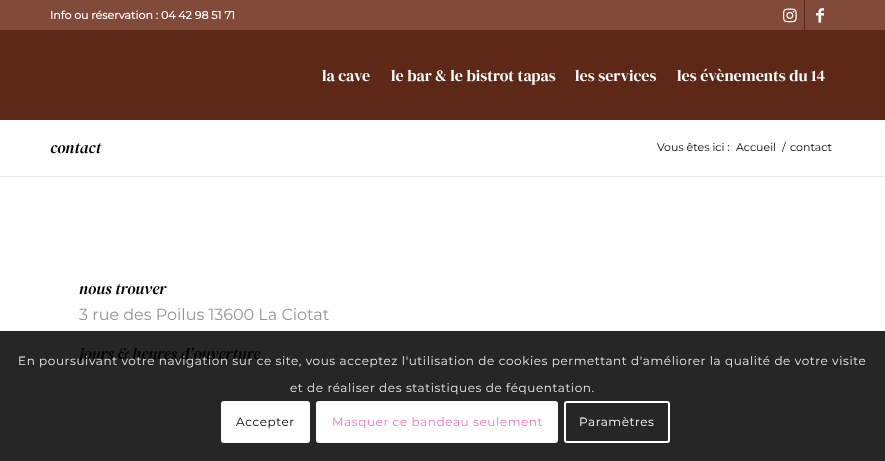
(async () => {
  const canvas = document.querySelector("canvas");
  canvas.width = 885;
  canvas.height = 461;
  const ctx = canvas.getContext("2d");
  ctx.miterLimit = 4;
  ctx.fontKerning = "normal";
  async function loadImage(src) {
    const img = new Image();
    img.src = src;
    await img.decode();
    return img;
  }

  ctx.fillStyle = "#ffffff";
  ctx.fillRect(0, 0, 885, 461);
  ctx.fillStyle = "#824b39";
  ctx.fillRect(0, 0, 885, 30);
  ctx.fillStyle = "#5d2816";
  ctx.fillRect(804, 0, 1, 30);
  ctx.drawImage(await loadImage("img/1.png"), 783, 8, 14, 15);
  ctx.drawImage(await loadImage("img/2.png"), 816, 8, 8, 15);
  for (const [x, y, w, h, color] of [
    [0, 30, 885, 90, "#5d2816"],
    [0, 331, 885, 130, "#262626"],
    [0, 176, 885, 1, "#ebebeb"],
  ]) {
    ctx.fillStyle = color;
    ctx.fillRect(x, y, w, h);
  }
  ctx.fillStyle = "#ffffff";
  ctx.beginPath();
  ctx.roundRect(221, 401, 89, 42, 3);
  ctx.fill();
  ctx.beginPath();
  ctx.roundRect(317, 402, 240, 40, 2);
  ctx.fill();
  ctx.strokeStyle = "#ffffff";
  ctx.lineWidth = 2;
  ctx.stroke();
  ctx.beginPath();
  ctx.roundRect(565, 402, 104, 40, 2);
  ctx.stroke();
  ctx.font = "bold 11px Montserrat";
  ctx.fillText("Info ou réservation : 04 42 98 51 71", 50, 19);
  ctx.font = "16px DM Serif Display";
  for (const [text, x, y] of [
    ["la cave", 322, 81],
    ["le bar & le bistrot tapas", 391, 81],
    ["les services", 575, 81],
    ["les évènements du 14", 677, 81],
  ]) {
    ctx.fillText(text, x, y);
  }
  ctx.font = "italic 16px DM Serif Display";
  ctx.fillStyle = "#000000";
  ctx.fillText("contact", 50, 153);
  ctx.font = "100 11px Montserrat";
  for (const [text, x, y] of [
    ["Vous êtes ici :", 657, 151],
    ["Accueil", 736, 151],
    ["/", 782, 151],
    ["contact", 790, 151],
  ]) {
    ctx.fillText(text, x, y);
  }
  ctx.font = "italic 16px DM Serif Display";
  ctx.fillText("nous trouver", 79, 294);
  ctx.font = "100 16px Montserrat";
  ctx.fillStyle = "#969696";
  ctx.fillText("3 rue des Poilus 13600 La Ciotat", 79, 320);
  ctx.font = "italic 16px DM Serif Display";
  ctx.fillStyle = "#000000";
  ctx.fillText("jours & heures d’ouverture", 79, 359);
  ctx.letterSpacing = "0.6px";
  ctx.font = "100 12px Montserrat";
  ctx.fillStyle = "#e9e9e9";
  ctx.fillText("En poursuivant votre navigation sur ce site, vous acceptez l'utilisation de cookies permettant d'améliorer la qualité de votre visite", 18, 365);
  ctx.fillText("et de réaliser des statistiques de féquentation.", 290, 392);
  ctx.fillStyle = "#000000";
  ctx.fillText("Accepter", 236, 426);
  ctx.fillStyle = "#ff75b5";
  ctx.fillText("Masquer ce bandeau seulement", 332, 426);
  ctx.fillStyle = "#ffffff";
  ctx.fillText("Paramètres", 579, 426);
})();
